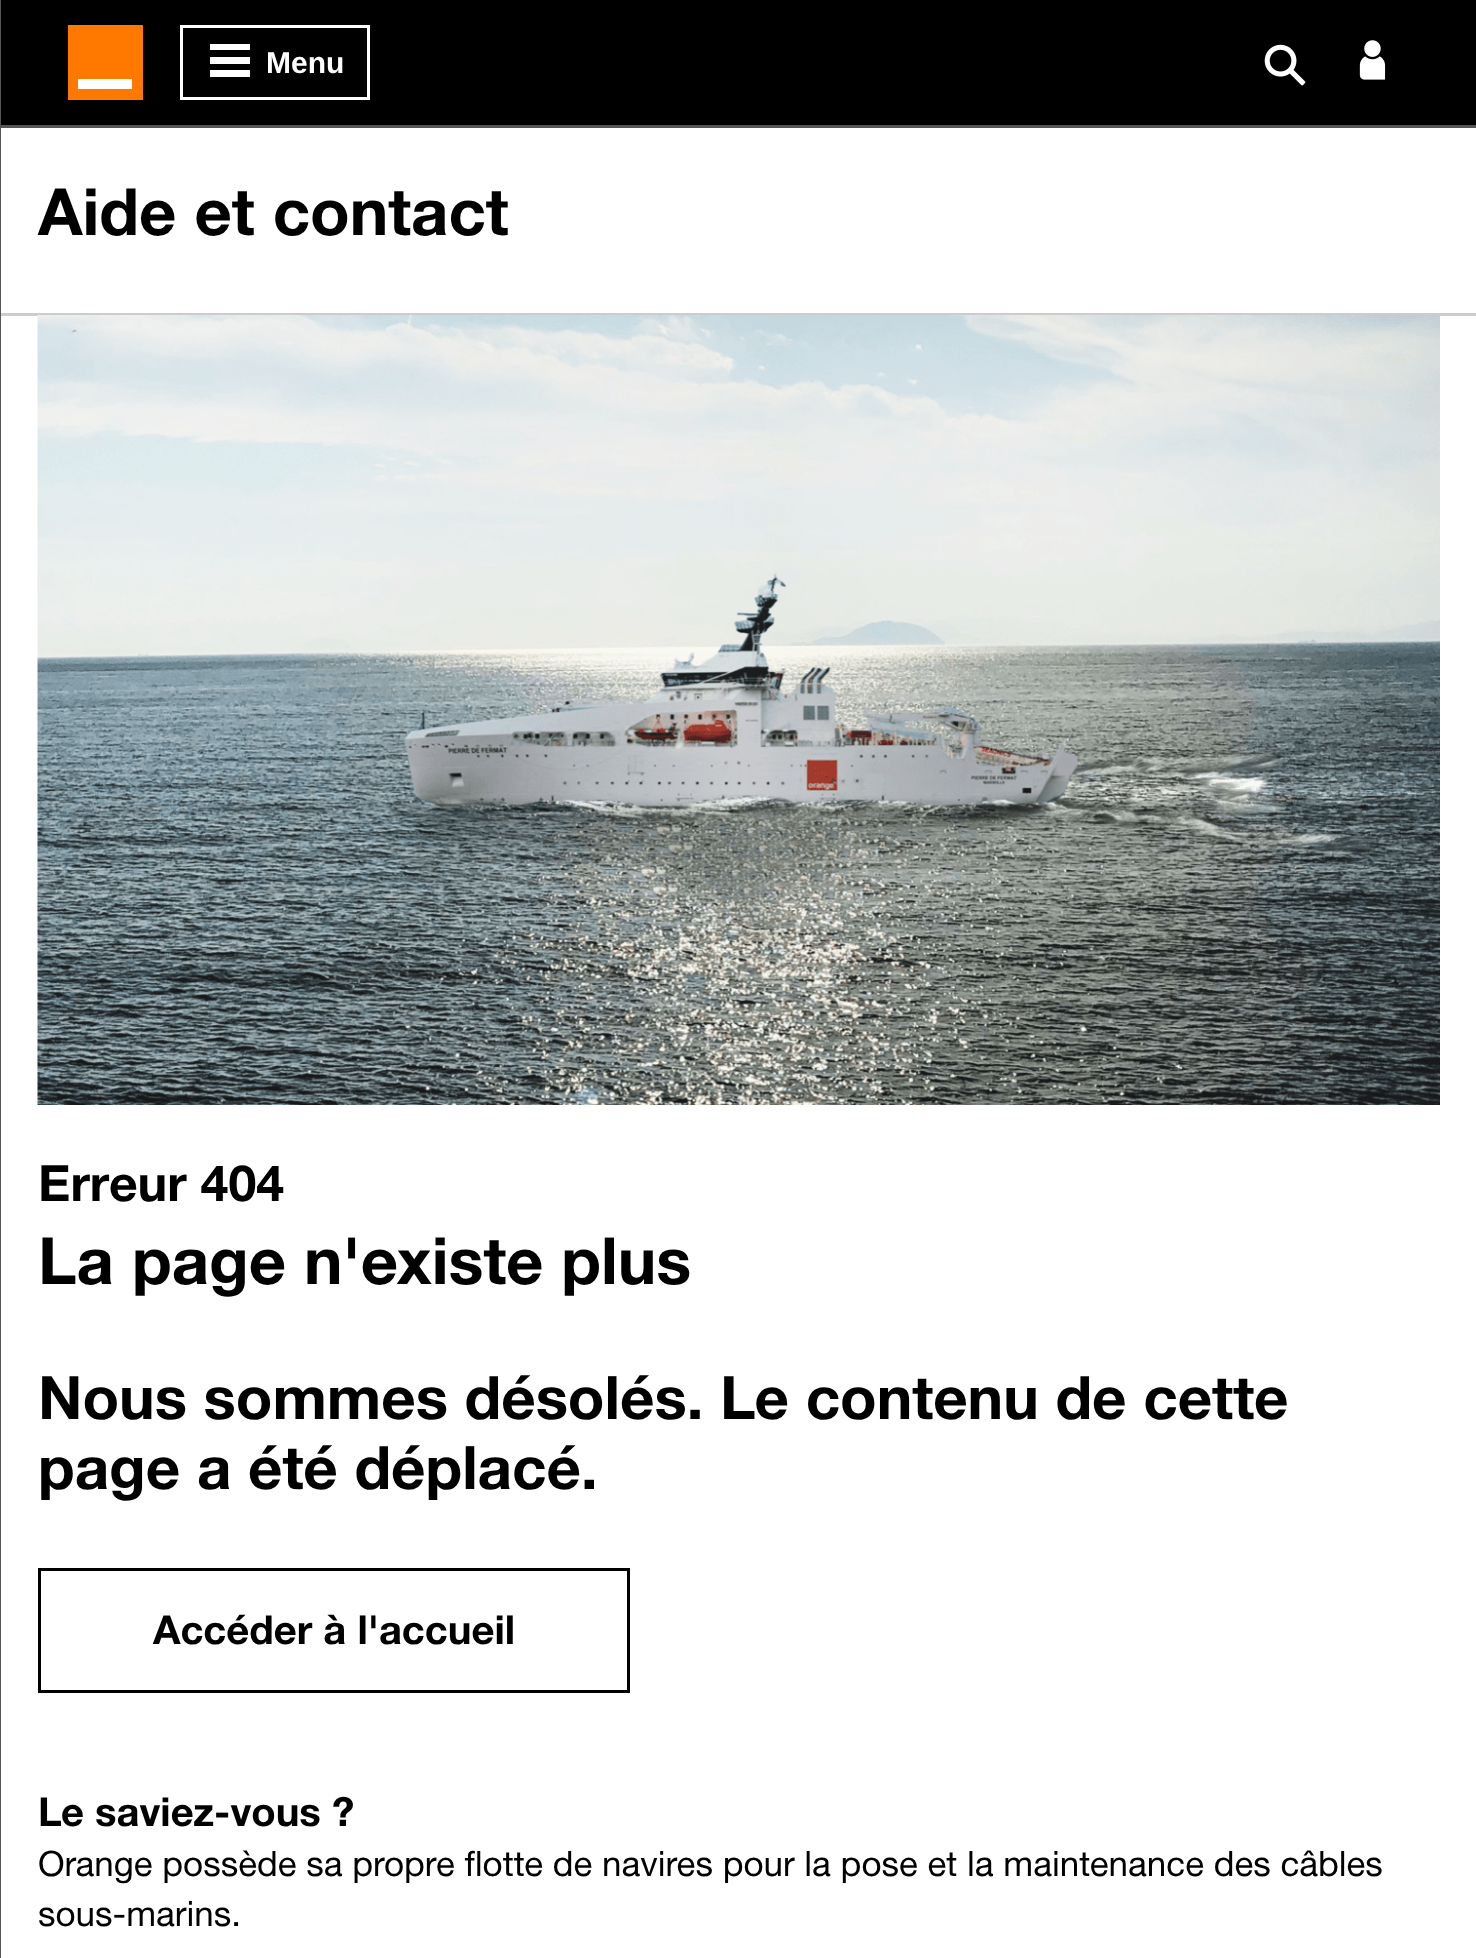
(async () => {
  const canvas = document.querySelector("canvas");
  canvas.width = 1476;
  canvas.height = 1958;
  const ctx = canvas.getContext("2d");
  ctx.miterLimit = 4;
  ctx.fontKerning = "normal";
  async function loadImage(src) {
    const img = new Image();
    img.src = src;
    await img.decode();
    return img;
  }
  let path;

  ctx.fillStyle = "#ffffff";
  ctx.fillRect(0, 0, 1476, 1958);
  for (const [x, y, w, h, color] of [
    [0, 125, 1476, 3, "#555555"],
    [0, 313, 1476, 3, "#cccccc"],
    [0, 0, 1, 1958, "#555555"],
    [1, 0, 1475, 125, "#000000"],
    [68, 25, 75, 75, "#ff7900"],
    [78, 79, 54, 10, "#ffffff"],
  ]) {
    ctx.fillStyle = color;
    ctx.fillRect(x, y, w, h);
  }
  ctx.strokeStyle = "#ffffff";
  ctx.lineWidth = 3;
  ctx.strokeRect(181.5, 26.5, 187, 72);
  path = new Path2D("M210 44H250V50H210ZM210 57H250V64H210ZM210 70H250V77H210Z");
  ctx.fill(path);
  ctx.drawImage(await loadImage("img/1.png"), 1264, 44, 42, 42);
  ctx.drawImage(await loadImage("img/2.png"), 1359, 40, 27, 40);
  ctx.drawImage(await loadImage("img/3.png"), 37, 315, 1403, 790);
  ctx.strokeStyle = "#000000";
  ctx.strokeRect(39.5, 1569.5, 589, 122);
  ctx.font = "bold 30px Liberation Sans";
  ctx.fillText("Menu", 266, 73);
  ctx.font = "bold 65px 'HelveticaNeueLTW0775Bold'";
  ctx.fillStyle = "#000000";
  ctx.fillText("Aide et contact", 38, 235);
  ctx.font = "bold 50px 'HelveticaNeueLTW0775Bold'";
  ctx.fillText("Erreur 404", 38, 1201);
  ctx.font = "bold 65px 'HelveticaNeueLTW0775Bold'";
  ctx.fillText("La page n'existe plus", 38, 1284);
  ctx.font = "bold 60px 'HelveticaNeueLTW0775Bold'";
  ctx.fillText("Nous sommes désolés. Le contenu de cette", 38, 1419);
  ctx.fillText("page a été déplacé.", 38, 1489);
  ctx.font = "bold 40px 'HelveticaNeueLTW0775Bold'";
  ctx.fillText("Accéder à l'accueil", 153, 1644);
  ctx.fillText("Le saviez-vous ?", 38, 1826);
  ctx.font = "35px 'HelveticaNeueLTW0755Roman'";
  ctx.fillText("Orange possède sa propre flotte de navires pour la pose et la maintenance des câbles", 38, 1876);
  ctx.fillText("sous-marins.", 38, 1926);
})();
